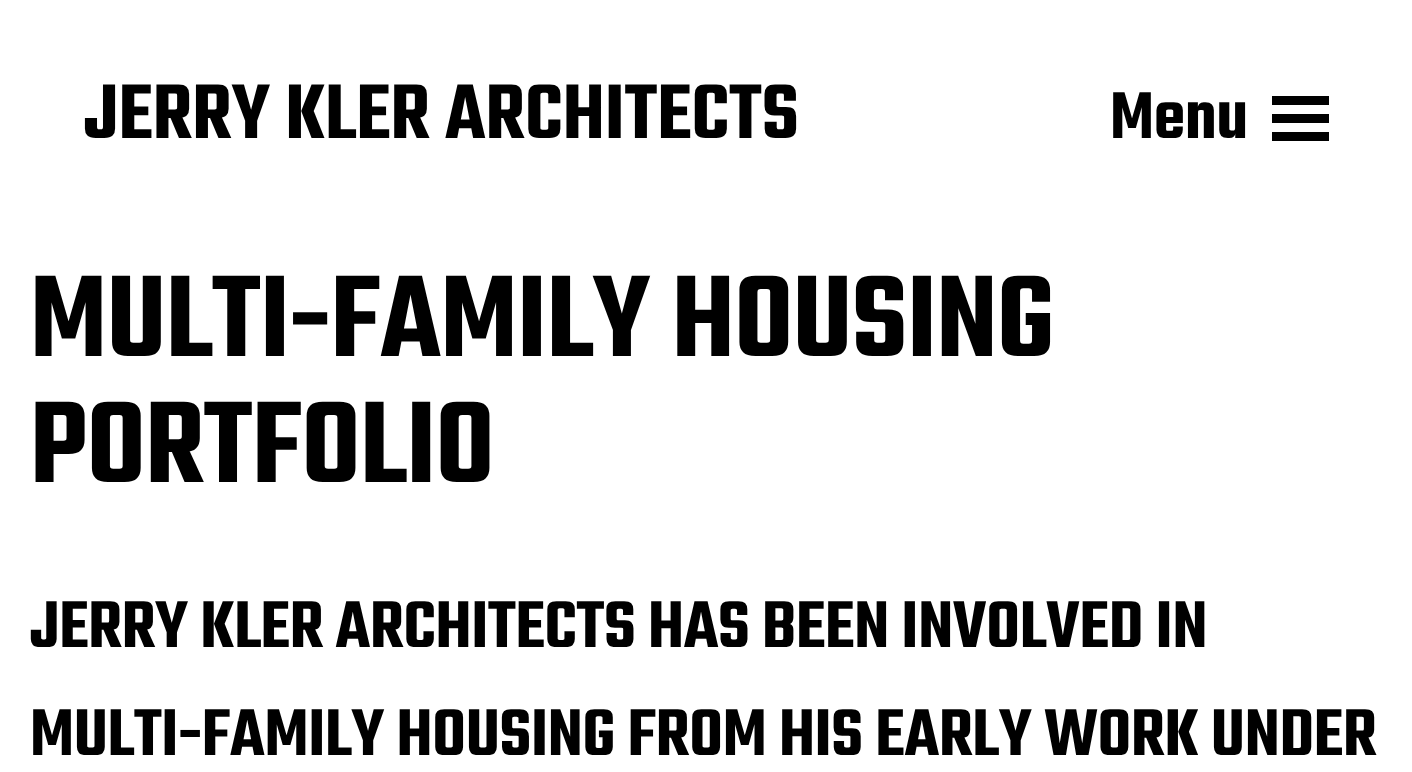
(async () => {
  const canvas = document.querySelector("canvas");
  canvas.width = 1412;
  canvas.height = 772;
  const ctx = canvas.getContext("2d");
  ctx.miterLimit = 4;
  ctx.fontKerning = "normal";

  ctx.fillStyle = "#ffffff";
  ctx.fillRect(0, 0, 1412, 772);
  for (const [x, y, w, h, color] of [
    [1272, 96, 57, 9, "#000000"],
    [1272, 114, 57, 9, "#000000"],
    [1272, 132, 57, 9, "#000000"],
  ]) {
    ctx.fillStyle = color;
    ctx.fillRect(x, y, w, h);
  }
  ctx.font = "600 84px Teko";
  ctx.fillText("JERRY KLER ARCHITECTS", 84, 138);
  ctx.font = "600 72px Teko";
  ctx.fillText("Menu", 1110, 138);
  ctx.letterSpacing = "-0.6px";
  ctx.font = "600 126px Teko";
  ctx.fillText("MULTI-FAMILY HOUSING", 30, 356);
  ctx.fillText("PORTFOLIO", 30, 482);
  ctx.letterSpacing = "-0.35px";
  ctx.font = "600 72px Teko";
  ctx.fillText("JERRY KLER ARCHITECTS HAS BEEN INVOLVED IN", 30, 647);
  ctx.fillText("MULTI-FAMILY HOUSING FROM HIS EARLY WORK UNDER", 30, 755);
})();
